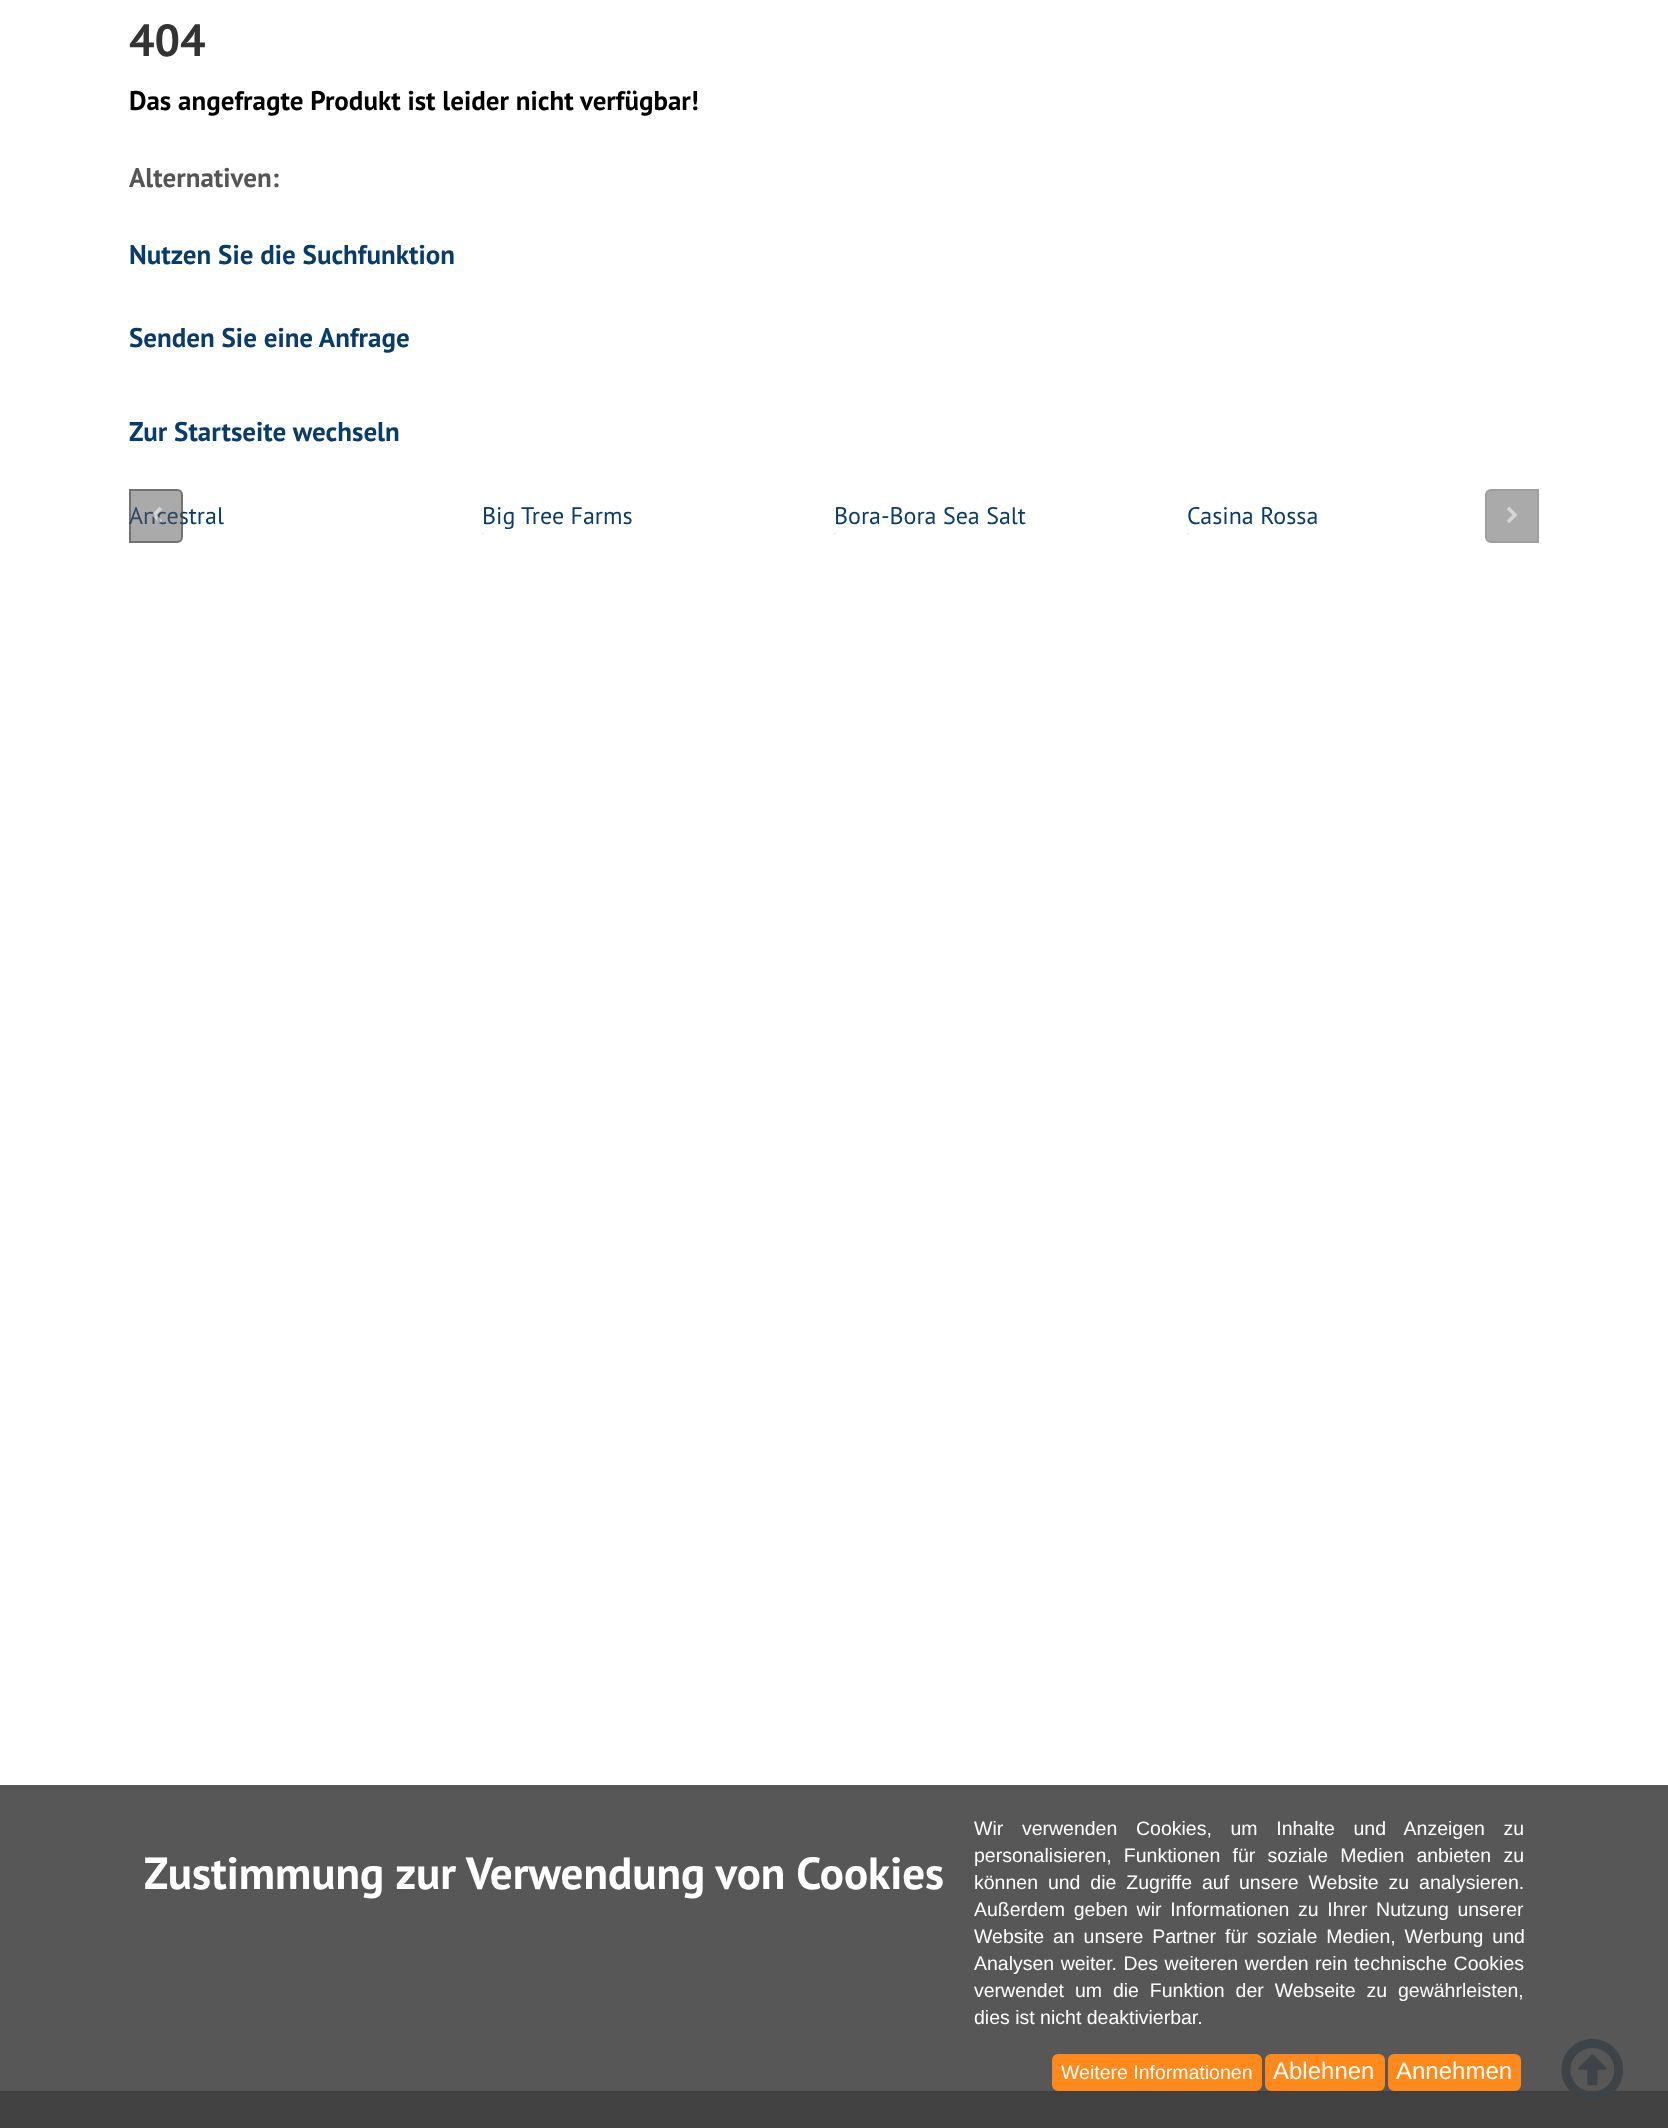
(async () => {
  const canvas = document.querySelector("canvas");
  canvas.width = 1668;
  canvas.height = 2128;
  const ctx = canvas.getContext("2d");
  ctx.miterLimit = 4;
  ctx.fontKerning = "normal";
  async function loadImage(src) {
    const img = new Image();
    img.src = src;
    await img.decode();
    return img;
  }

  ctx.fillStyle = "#ffffff";
  ctx.fillRect(0, 0, 1668, 2128);
  ctx.fillStyle = "#575757";
  ctx.fillRect(0, 1785, 1668, 306);
  ctx.fillStyle = "#aaaaaa";
  ctx.beginPath();
  ctx.roundRect(1486, 490, 52, 52, [5, 0, 0, 5]);
  ctx.fill();
  ctx.strokeStyle = "#9e9e9e";
  ctx.lineWidth = 2;
  ctx.stroke();
  ctx.drawImage(await loadImage("img/2.png"), 1507, 507, 11, 16);
  ctx.fillStyle = "#80ff80";
  ctx.fillRect(129, 533, 2, 1);
  ctx.drawImage(await loadImage("img/3.png"), 482, 533, 2, 1);
  ctx.drawImage(await loadImage("img/4.png"), 834, 533, 2, 1);
  ctx.drawImage(await loadImage("img/3.png"), 1187, 533, 2, 1);
  ctx.fillStyle = "#424242";
  ctx.fillRect(0, 2093, 1668, 35);
  ctx.fillStyle = "#3f3f3f";
  ctx.fillRect(0, 2091, 1668, 2);
  ctx.drawImage(await loadImage("img/5.png"), 1561, 2038, 63, 63);
  ctx.fillStyle = "#ff891b";
  ctx.beginPath();
  ctx.roundRect(1053, 2055, 208, 35, 5);
  ctx.fill();
  ctx.strokeStyle = "#ff881a";
  ctx.stroke();
  ctx.beginPath();
  ctx.roundRect(1266, 2055, 118, 35, 5);
  ctx.fill();
  ctx.stroke();
  ctx.beginPath();
  ctx.roundRect(1389, 2055, 131, 35, 5);
  ctx.fill();
  ctx.stroke();
  ctx.font = "bold 45px PT Sans";
  ctx.fillStyle = "#333333";
  ctx.fillText("404", 129, 56);
  ctx.font = "bold 27px PT Sans";
  ctx.fillStyle = "#000000";
  ctx.fillText("Das angefragte Produkt ist leider nicht verfügbar!", 129, 110);
  ctx.fillStyle = "#555555";
  ctx.fillText("Alternativen:", 129, 187);
  ctx.fillStyle = "#093c6a";
  for (const [text, x, y] of [
    ["Nutzen Sie die Suchfunktion", 129, 264],
    ["Senden Sie eine Anfrage", 129, 347],
    ["Zur Startseite wechseln", 129, 441],
  ]) {
    ctx.fillText(text, x, y);
  }
  ctx.font = "24px PT Sans";
  ctx.fillText("Ancestral", 129, 524);
  ctx.fillStyle = "rgba(85, 85, 85, 0.5)";
  ctx.beginPath();
  ctx.roundRect(129, 489, 54, 54, [0, 6, 6, 0]);
  ctx.fill();
  ctx.beginPath();
  ctx.roundRect(130, 490, 52, 52, [0, 5, 5, 0]);
  ctx.strokeStyle = "rgba(60, 60, 60, 0.5)";
  ctx.stroke();
  ctx.drawImage(await loadImage("img/1.png"), 151, 507, 11, 16);
  ctx.fillStyle = "#093c6a";
  for (const [text, x, y] of [
    ["Big Tree Farms", 482, 524],
    ["Bora-Bora Sea Salt", 834, 524],
    ["Casina Rossa", 1187, 524],
  ]) {
    ctx.fillText(text, x, y);
  }
  ctx.font = "bold 45px PT Sans";
  ctx.fillStyle = "#ffffff";
  ctx.fillText("Zustimmung zur Verwendung von Cookies", 144, 1889);
  ctx.wordSpacing = "13.25px";
  ctx.font = "19.5px Liberation Sans";
  ctx.fillText("Wir verwenden Cookies, um Inhalte und Anzeigen zu", 974, 1835);
  ctx.wordSpacing = "6.75px";
  ctx.fillText("personalisieren, Funktionen für soziale Medien anbieten zu", 974, 1862);
  ctx.wordSpacing = "4.5px";
  ctx.fillText("können und die Zugriffe auf unsere Website zu analysieren.", 974, 1889);
  ctx.wordSpacing = "3.25px";
  ctx.fillText("Außerdem geben wir Informationen zu Ihrer Nutzung unserer", 974, 1916);
  ctx.wordSpacing = "3.5px";
  ctx.fillText("Website an unsere Partner für soziale Medien, Werbung und", 974, 1943);
  ctx.wordSpacing = "1px";
  ctx.fillText("Analysen weiter. Des weiteren werden rein technische Cookies", 974, 1970);
  ctx.wordSpacing = "5.5px";
  ctx.fillText("verwendet um die Funktion der Webseite zu gewährleisten,", 974, 1997);
  ctx.wordSpacing = "0px";
  ctx.fillText("dies ist nicht deaktivierbar.", 974, 2024);
  ctx.fillText("Weitere Informationen", 1061, 2079);
  ctx.font = "24px Liberation Sans";
  ctx.fillText("Ablehnen", 1273, 2079);
  ctx.fillText("Annehmen", 1396, 2079);
})();
